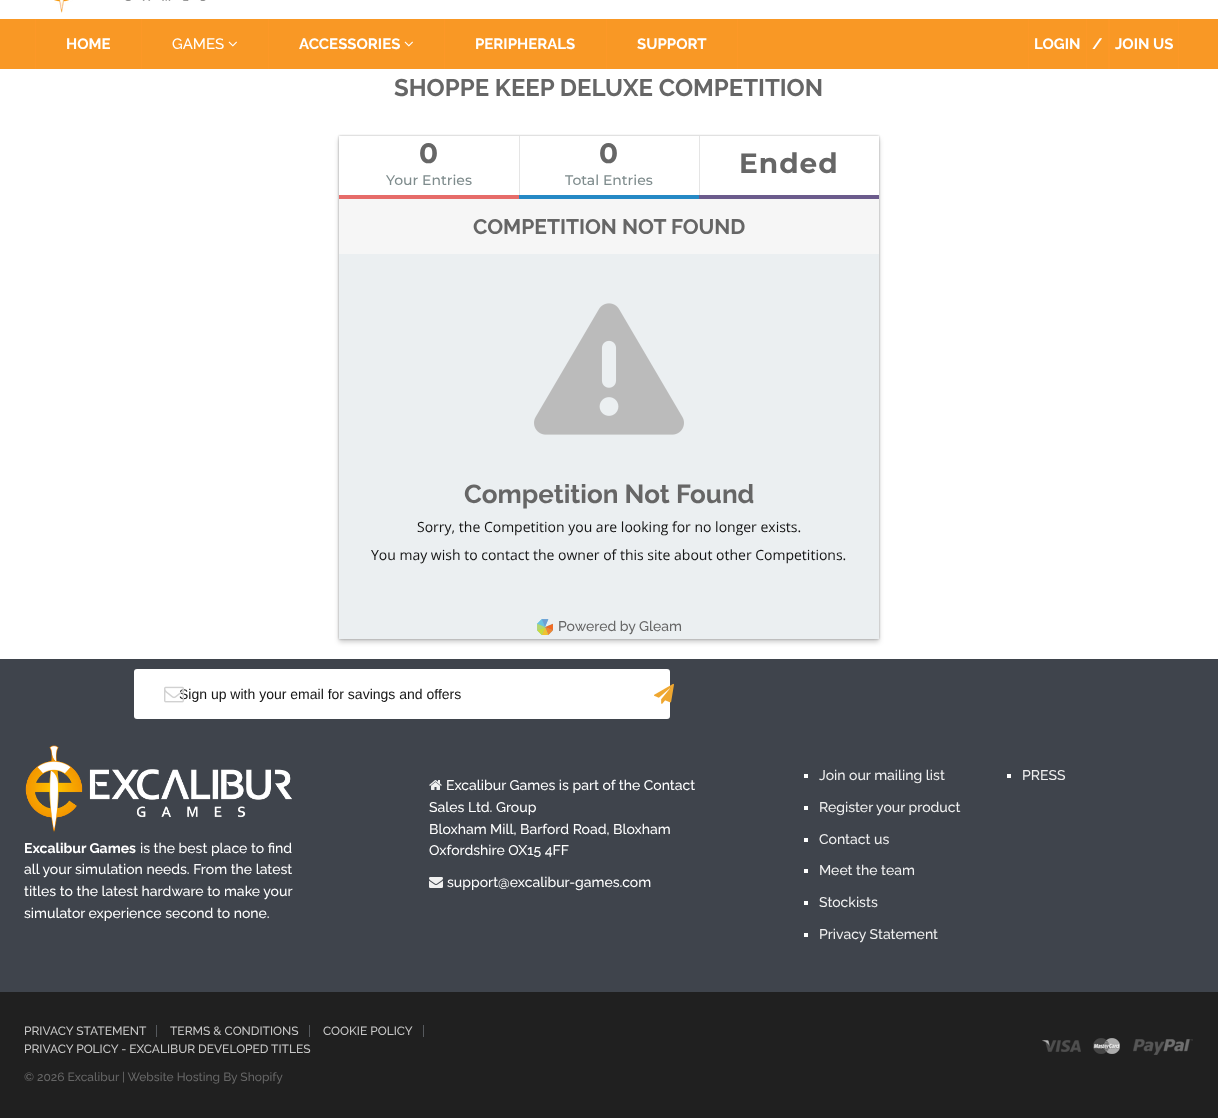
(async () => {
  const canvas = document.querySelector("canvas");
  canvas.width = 1218;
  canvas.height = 1118;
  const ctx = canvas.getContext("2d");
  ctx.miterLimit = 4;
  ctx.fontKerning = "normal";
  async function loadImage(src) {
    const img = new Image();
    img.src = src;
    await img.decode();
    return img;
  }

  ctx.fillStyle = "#ffffff";
  ctx.fillRect(0, 0, 1218, 1118);
  ctx.drawImage(await loadImage("img/1.png"), 54, 0, 152, 13);
  for (const [x, y, w, h, color] of [
    [0, 19, 1218, 50, "#f99825"],
    [141, 19, 1, 50, "#fd9827"],
    [35, 19, 1, 50, "#fd9827"],
  ]) {
    ctx.fillStyle = color;
    ctx.fillRect(x, y, w, h);
  }
  ctx.drawImage(await loadImage("img/2.png"), 228, 41, 9, 6);
  ctx.fillRect(268, 19, 1, 50);
  ctx.drawImage(await loadImage("img/2.png"), 404, 41, 9, 6);
  for (const [x, y, w, h, color] of [
    [606, 19, 1, 50, "#fd9827"],
    [444, 19, 1, 50, "#fd9827"],
    [737, 19, 1, 50, "#fd9827"],
    [1086, 19, 1, 50, "#fd9827"],
    [1028, 19, 1, 50, "#fd9827"],
    [1108, 19, 2, 50, "#fd9827"],
    [1178, 19, 1, 50, "#fd9827"],
  ]) {
    ctx.fillStyle = color;
    ctx.fillRect(x, y, w, h);
  }
  ctx.fillStyle = "rgba(0, 0, 0, 0.2)";
  ctx.filter = "blur(2.5px)";
  ctx.beginPath();
  ctx.rect(339, 139, 540, 503);
  ctx.fill();
  ctx.filter = "none";
  ctx.fillStyle = "rgba(0, 0, 0, 0.3)";
  ctx.filter = "blur(1px)";
  ctx.beginPath();
  ctx.rect(339, 136, 540, 503);
  ctx.fill();
  ctx.filter = "none";
  for (const [x, y, w, h, color] of [
    [339, 254, 540, 385, "#ebeff1"],
    [339, 136, 180, 59, "#ffffff"],
    [339, 195, 180, 4, "#e66c69"],
    [520, 136, 179, 59, "#ffffff"],
    [519, 195, 180, 4, "#2589c5"],
    [519, 136, 1, 59, "#e5e5e5"],
    [700, 136, 179, 59, "#ffffff"],
    [699, 195, 180, 4, "#6b5b8c"],
    [699, 136, 1, 59, "#e5e5e5"],
    [339, 199, 540, 55, "#f6f6f6"],
  ]) {
    ctx.fillStyle = color;
    ctx.fillRect(x, y, w, h);
  }
  ctx.drawImage(await loadImage("img/3.png"), 534, 303, 150, 132);
  ctx.drawImage(await loadImage("img/4.png"), 537, 619, 16, 16);
  ctx.fillStyle = "#3f444c";
  ctx.fillRect(0, 659, 1218, 333);
  ctx.fillStyle = "#ffffff";
  ctx.beginPath();
  ctx.roundRect(134, 669, 536, 50, 3);
  ctx.fill();
  ctx.drawImage(await loadImage("img/6.png"), 654, 683, 20, 21);
  ctx.drawImage(await loadImage("img/7.png"), 25, 745, 267, 88);
  ctx.drawImage(await loadImage("img/8.png"), 429, 780, 13, 10);
  ctx.drawImage(await loadImage("img/9.png"), 429, 877, 14, 11);
  for (const [x, y, w, h, color] of [
    [804, 774, 4, 4, "#ffffff"],
    [804, 806, 4, 4, "#ffffff"],
    [804, 838, 4, 4, "#ffffff"],
    [804, 869, 4, 4, "#ffffff"],
    [804, 901, 4, 4, "#ffffff"],
    [804, 933, 4, 4, "#ffffff"],
    [1007, 774, 4, 4, "#ffffff"],
    [0, 992, 1218, 126, "#202020"],
    [156, 1025, 1, 12, "#56595d"],
    [309, 1025, 1, 12, "#56595d"],
    [423, 1025, 1, 12, "#56595d"],
  ]) {
    ctx.fillStyle = color;
    ctx.fillRect(x, y, w, h);
  }
  ctx.drawImage(await loadImage("img/10.png"), 1042, 1040, 39, 12);
  ctx.drawImage(await loadImage("img/11.png"), 1093, 1038, 27, 16);
  ctx.drawImage(await loadImage("img/12.png"), 1133, 1039, 60, 16);
  ctx.font = "bold 15px Raleway";
  ctx.fillStyle = "#ffffff";
  ctx.fillText("HOME", 66, 49);
  ctx.font = "500 15px Raleway";
  ctx.fillText("GAMES", 172, 49);
  ctx.font = "bold 15px Raleway";
  for (const [text, x, y] of [
    ["ACCESSORIES", 299, 49],
    ["PERIPHERALS", 475, 49],
    ["SUPPORT", 637, 49],
    ["LOGIN", 1034, 49],
    ["/", 1092, 49],
    ["JOIN US", 1115, 49],
  ]) {
    ctx.fillText(text, x, y);
  }
  ctx.font = "bold 24px Raleway";
  ctx.fillStyle = "#666666";
  ctx.fillText("SHOPPE KEEP DELUXE COMPETITION", 394, 96);
  ctx.letterSpacing = "1px";
  ctx.font = "bold 28px Montserrat";
  ctx.fillText("0", 419, 163);
  ctx.letterSpacing = "0px";
  ctx.font = "500 14px Montserrat";
  ctx.fillStyle = "#7f8c8d";
  ctx.fillText("Your Entries", 386, 185);
  ctx.letterSpacing = "1px";
  ctx.font = "bold 28px Montserrat";
  ctx.fillStyle = "#666666";
  ctx.fillText("0", 599, 163);
  ctx.letterSpacing = "0px";
  ctx.font = "500 14px Montserrat";
  ctx.fillStyle = "#7f8c8d";
  ctx.fillText("Total Entries", 565, 185);
  ctx.letterSpacing = "1px";
  ctx.font = "bold 28px Montserrat";
  ctx.fillStyle = "#666666";
  ctx.fillText("Ended", 739, 173);
  ctx.letterSpacing = "0px";
  ctx.font = "bold 21px Raleway";
  ctx.fillText("COMPETITION NOT FOUND", 473, 234);
  ctx.font = "bold 26px Raleway";
  ctx.fillText("Competition Not Found", 464, 503);
  ctx.font = "14px Open Sans";
  ctx.fillStyle = "#141414";
  ctx.fillText("Sorry, the Competition you are looking for no longer exists.", 417, 532);
  ctx.fillText("You may wish to contact the owner of this site about other Competitions.", 371, 560);
  ctx.font = "500 14px Raleway";
  ctx.fillStyle = "#666666";
  ctx.fillText("Powered by Gleam", 558, 631);
  ctx.font = "14px Liberation Sans";
  ctx.fillStyle = "#141414";
  ctx.fillText("Sign up with your email for savings and offers", 179, 699);
  ctx.drawImage(await loadImage("img/5.png"), 164, 686, 20, 17);
  ctx.font = "bold 14px Raleway";
  ctx.fillStyle = "#ffffff";
  ctx.fillText("Excalibur Games", 24, 853);
  ctx.font = "500 14px Raleway";
  for (const [text, x, y] of [
    ["is the best place to find", 140, 853],
    ["all your simulation needs. From the latest", 24, 874],
    ["titles to the latest hardware to make your", 24, 896],
    ["simulator experience second to none.", 24, 918],
    ["Excalibur Games is part of the Contact", 446, 790],
    ["Sales Ltd. Group", 429, 812],
    ["Bloxham Mill, Barford Road, Bloxham", 429, 834],
    ["Oxfordshire OX15 4FF", 429, 855],
    ["support@excalibur-games.com", 447, 887],
  ]) {
    ctx.fillText(text, x, y);
  }
  ctx.fillStyle = "#f0f0f0";
  for (const [text, x, y] of [
    ["Join our mailing list", 819, 780],
    ["Register your product", 819, 812],
    ["Contact us", 819, 844],
    ["Meet the team", 819, 875],
    ["Stockists", 819, 907],
    ["Privacy Statement", 819, 939],
    ["PRESS", 1022, 780],
  ]) {
    ctx.fillText(text, x, y);
  }
  ctx.font = "500 12px Raleway";
  ctx.fillStyle = "#c8c8c8";
  for (const [text, x, y] of [
    ["PRIVACY STATEMENT", 24, 1035],
    ["TERMS & CONDITIONS", 170, 1035],
    ["COOKIE POLICY", 323, 1035],
    ["PRIVACY POLICY - EXCALIBUR DEVELOPED TITLES", 24, 1053],
  ]) {
    ctx.fillText(text, x, y);
  }
  ctx.fillStyle = "#666666";
  ctx.fillText("© 2026 Excalibur", 24, 1081);
  ctx.fillText("| Website Hosting By Shopify", 122, 1081);
})();
